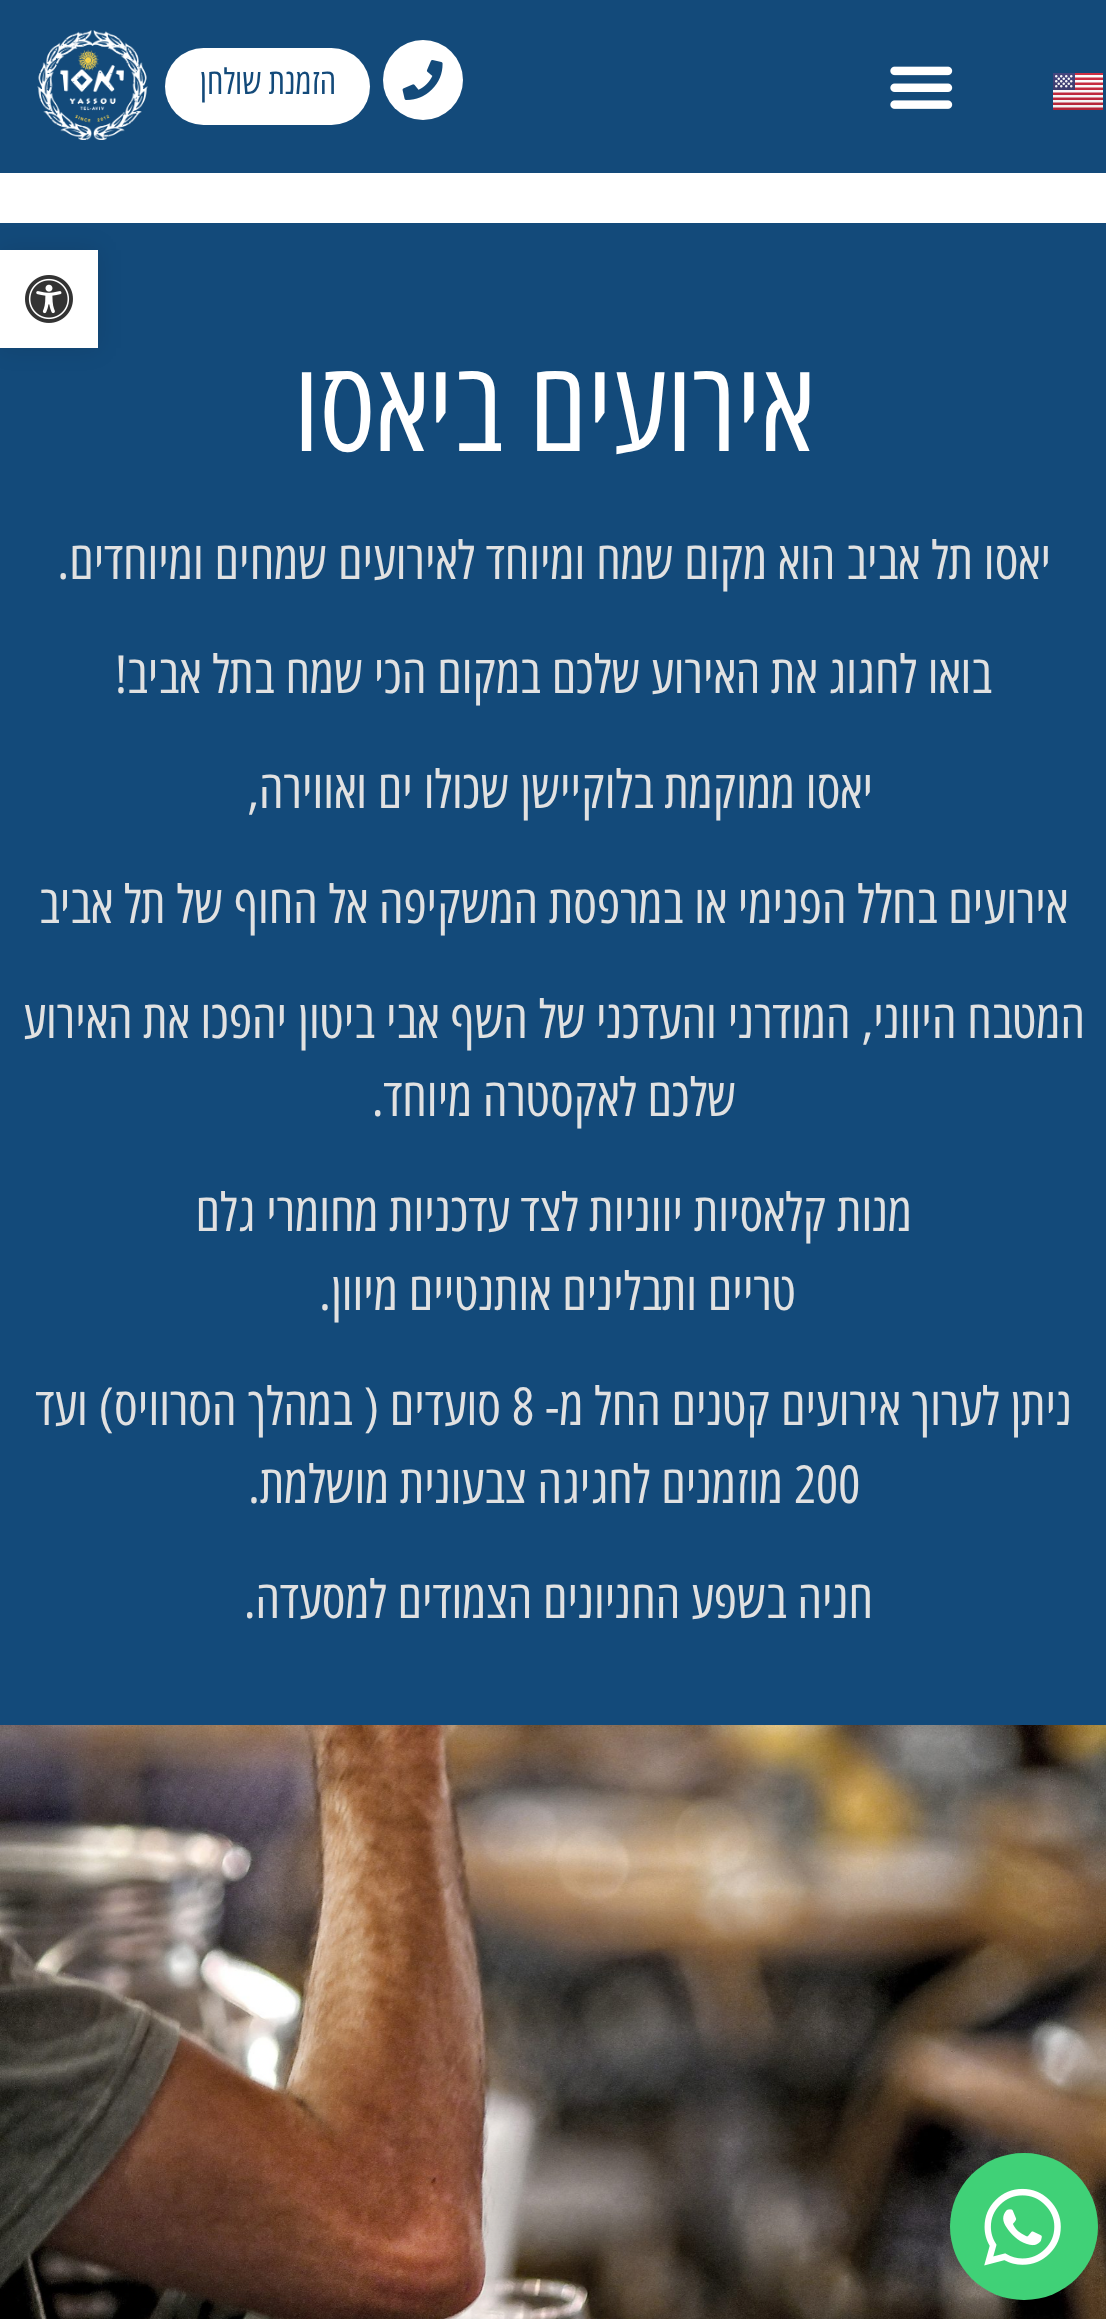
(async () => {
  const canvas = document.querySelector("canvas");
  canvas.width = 1106;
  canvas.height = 2319;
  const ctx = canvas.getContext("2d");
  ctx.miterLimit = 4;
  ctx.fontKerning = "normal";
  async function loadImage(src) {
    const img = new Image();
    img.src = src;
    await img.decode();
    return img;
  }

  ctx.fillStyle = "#ffffff";
  ctx.fillRect(0, 0, 1106, 2319);
  ctx.fillStyle = "#134a7a";
  ctx.fillRect(0, 0, 1106, 173);
  ctx.drawImage(await loadImage("img/1.png"), 1053, 73, 50, 37);
  ctx.drawImage(await loadImage("img/2.png"), 890, 66, 63, 43);
  ctx.fillStyle = "#ffffff";
  ctx.beginPath();
  ctx.arc(423, 80, 40, 0, Math.PI * 2);
  ctx.fill();
  ctx.drawImage(await loadImage("img/3.png"), 402, 60, 41, 40);
  ctx.beginPath();
  ctx.roundRect(165, 48, 205, 77, 38.5);
  ctx.fill();
  ctx.drawImage(await loadImage("img/4.png"), 37, 30, 111, 110);
  ctx.fillStyle = "#134a7a";
  ctx.fillRect(0, 223, 1106, 1502);
  ctx.fillStyle = "rgba(0, 0, 0, 0.1)";
  ctx.filter = "blur(12.5px)";
  ctx.beginPath();
  ctx.rect(0, 250, 98, 98);
  ctx.fill();
  ctx.filter = "none";
  ctx.fillStyle = "#ffffff";
  ctx.fillRect(0, 250, 98, 98);
  ctx.drawImage(await loadImage("img/5.png"), 25, 275, 48, 48);
  ctx.drawImage(await loadImage("img/6.png"), 0, 1725, 1106, 594);
  ctx.fillStyle = "#40d177";
  ctx.beginPath();
  ctx.roundRect(950, 2153, 148, 147, 73.5);
  ctx.fill();
  ctx.drawImage(await loadImage("img/7.png"), 984, 2188, 77, 78);
  ctx.direction = "rtl";
  ctx.font = "35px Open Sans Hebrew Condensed";
  ctx.fillStyle = "#134a7a";
  ctx.fillText("הזמנת שולחן", 336, 94);
  ctx.font = "125px Open Sans Hebrew Condensed";
  ctx.fillStyle = "#ffffff";
  ctx.fillText("אירועים ביאסו", 814, 451);
  ctx.font = "52.5px Open Sans Hebrew Condensed";
  ctx.fillStyle = "#e1e1e1";
  for (const [text, x, y] of [
    ["יאסו תל אביב הוא מקום שמח ומיוחד לאירועים שמחים ומיוחדים.", 1051, 579],
    ["בואו לחגוג את האירוע שלכם במקום הכי שמח בתל אביב!", 992, 693],
    ["יאסו ממוקמת בלוקיישן שכולו ים ואווירה,", 873, 808],
    ["אירועים בחלל הפנימי או במרפסת המשקיפה אל החוף של תל אביב", 1068, 923],
    ["המטבח היווני, המודרני והעדכני של השף אבי ביטון יהפכו את האירוע", 1085, 1038],
    ["שלכם לאקסטרה מיוחד.", 736, 1116],
    ["מנות קלאסיות יווניות לצד עדכניות מחומרי גלם", 912, 1231],
    ["טריים ותבלינים אותנטיים מיוון.", 796, 1310],
    ["ניתן לערוך אירועים קטנים החל מ-", 1072, 1425],
  ]) {
    ctx.fillText(text, x, y);
  }
  ctx.direction = "ltr";
  ctx.fillText("8", 512, 1425);
  ctx.direction = "rtl";
  ctx.fillText("סועדים ( במהלך הסרוויס) ועד", 501, 1425);
  ctx.direction = "ltr";
  ctx.fillText("200", 794, 1503);
  ctx.direction = "rtl";
  ctx.fillText("מוזמנים לחגיגה צבעונית מושלמת.", 783, 1503);
  ctx.fillText("חניה בשפע החניונים הצמודים למסעדה.", 873, 1618);
})();
